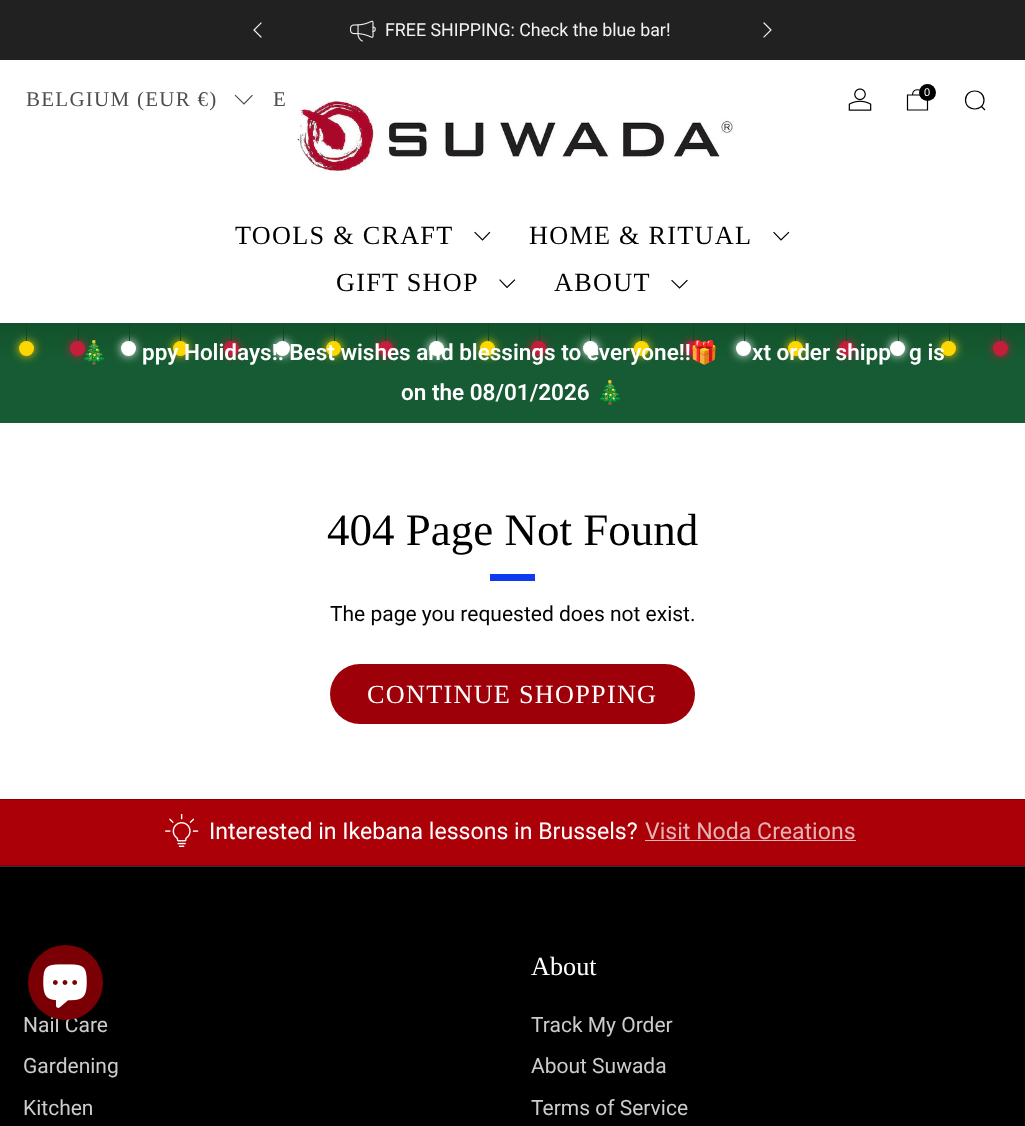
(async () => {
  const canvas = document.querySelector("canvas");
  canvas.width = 1025;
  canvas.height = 1126;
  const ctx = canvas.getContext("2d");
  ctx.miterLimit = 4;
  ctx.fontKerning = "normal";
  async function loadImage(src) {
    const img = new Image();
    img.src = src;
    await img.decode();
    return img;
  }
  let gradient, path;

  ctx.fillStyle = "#ffffff";
  ctx.fillRect(0, 0, 1025, 1126);
  ctx.fillStyle = "#212121";
  ctx.fillRect(0, 0, 1025, 60);
  path = new Path2D("M261 37L254 30L261 23");
  ctx.strokeStyle = "#f2f2f2";
  ctx.lineWidth = 1.2;
  ctx.lineCap = "square";
  ctx.stroke(path);
  ctx.drawImage(await loadImage("img/1.png"), 350, 20, 26, 22);
  path = new Path2D("M764 23L771 30L764 37");
  ctx.stroke(path);
  path = new Path2D("M252 95.5L244 104L235.5 95.5");
  ctx.strokeStyle = "#4d4d4d";
  ctx.stroke(path);
  ctx.drawImage(await loadImage("img/2.png"), 848, 88, 24, 23);
  path = new Path2D("M922.5 95C922.5 88 912.5 88 912.5 95M907.5 95H927.5V110H907.5Z");
  ctx.strokeStyle = "#000000";
  ctx.lineCap = "butt";
  ctx.stroke(path);
  ctx.fillStyle = "#000000";
  ctx.beginPath();
  ctx.arc(927.5, 92.5, 8.5, 0, Math.PI * 2);
  ctx.fill();
  path = new Path2D("M981.5 106.5L985 110M984 100C984 112 965.5 112 965.5 100C965.5 88 984 88 984 100Z");
  ctx.stroke(path);
  path = new Path2D("M489.5 232.5L482.5 240L475 232.5");
  ctx.lineCap = "square";
  ctx.stroke(path);
  path = new Path2D("M788.5 232.5L781 240L774 232.5");
  ctx.stroke(path);
  path = new Path2D("M514.5 280L507 287.5L500 280");
  ctx.stroke(path);
  path = new Path2D("M687 280.5L679.5 288L672 280.5");
  ctx.stroke(path);
  ctx.drawImage(await loadImage("img/3.png"), 291, 93, 443, 79);
  ctx.fillStyle = "#165b33";
  ctx.fillRect(0, 360, 1025, 63);
  gradient = ctx.createLinearGradient(513, 322, 513, 360);
  gradient.addColorStop(0, "#12522b");
  gradient.addColorStop(1, "#165b33");
  ctx.fillStyle = gradient;
  ctx.fillRect(0, 323, 1025, 37);
  ctx.fillStyle = "#ffd700";
  ctx.filter = "blur(5px)";
  ctx.beginPath();
  ctx.roundRect(19, 341, 15, 15, 7.5);
  ctx.fill();
  ctx.filter = "none";
  ctx.beginPath();
  ctx.arc(26.5, 348.5, 7.5, 0, Math.PI * 2);
  ctx.fill();
  ctx.fillStyle = "#0f4c25";
  ctx.fillRect(26, 323, 1, 18);
  ctx.fillStyle = "#c41e3a";
  ctx.filter = "blur(5px)";
  ctx.beginPath();
  ctx.roundRect(70, 341, 15, 15, 7.5);
  ctx.fill();
  ctx.filter = "none";
  ctx.beginPath();
  ctx.arc(77.5, 348.5, 7.5, 0, Math.PI * 2);
  ctx.fill();
  ctx.fillStyle = "#0f4c25";
  ctx.fillRect(78, 323, 1, 18);
  ctx.fillStyle = "#ffffff";
  ctx.filter = "blur(5px)";
  ctx.beginPath();
  ctx.roundRect(121, 341, 15, 15, 7.5);
  ctx.fill();
  ctx.filter = "none";
  ctx.beginPath();
  ctx.arc(128.5, 348.5, 7.5, 0, Math.PI * 2);
  ctx.fill();
  ctx.fillStyle = "#0f4c25";
  ctx.fillRect(129, 323, 1, 18);
  ctx.fillStyle = "#ffd700";
  ctx.filter = "blur(5px)";
  ctx.beginPath();
  ctx.roundRect(173, 341, 15, 15, 7.5);
  ctx.fill();
  ctx.filter = "none";
  ctx.beginPath();
  ctx.arc(180.5, 348.5, 7.5, 0, Math.PI * 2);
  ctx.fill();
  ctx.fillStyle = "#0f4c25";
  ctx.fillRect(180, 323, 1, 18);
  ctx.fillStyle = "#c41e3a";
  ctx.filter = "blur(5px)";
  ctx.beginPath();
  ctx.roundRect(224, 341, 15, 15, 7.5);
  ctx.fill();
  ctx.filter = "none";
  ctx.beginPath();
  ctx.arc(231.5, 348.5, 7.5, 0, Math.PI * 2);
  ctx.fill();
  ctx.fillStyle = "#0f4c25";
  ctx.fillRect(231, 323, 1, 18);
  ctx.fillStyle = "#ffffff";
  ctx.filter = "blur(5px)";
  ctx.beginPath();
  ctx.roundRect(275, 341, 15, 15, 7.5);
  ctx.fill();
  ctx.filter = "none";
  ctx.beginPath();
  ctx.arc(282.5, 348.5, 7.5, 0, Math.PI * 2);
  ctx.fill();
  ctx.fillStyle = "#0f4c25";
  ctx.fillRect(283, 323, 1, 18);
  ctx.fillStyle = "#ffd700";
  ctx.filter = "blur(5px)";
  ctx.beginPath();
  ctx.roundRect(326, 341, 15, 15, 7.5);
  ctx.fill();
  ctx.filter = "none";
  ctx.beginPath();
  ctx.arc(333.5, 348.5, 7.5, 0, Math.PI * 2);
  ctx.fill();
  ctx.fillStyle = "#0f4c25";
  ctx.fillRect(334, 323, 1, 18);
  ctx.fillStyle = "#c41e3a";
  ctx.filter = "blur(5px)";
  ctx.beginPath();
  ctx.roundRect(378, 341, 15, 15, 7.5);
  ctx.fill();
  ctx.filter = "none";
  ctx.beginPath();
  ctx.arc(385.5, 348.5, 7.5, 0, Math.PI * 2);
  ctx.fill();
  ctx.fillStyle = "#0f4c25";
  ctx.fillRect(385, 323, 1, 18);
  ctx.fillStyle = "#ffffff";
  ctx.filter = "blur(5px)";
  ctx.beginPath();
  ctx.roundRect(429, 341, 15, 15, 7.5);
  ctx.fill();
  ctx.filter = "none";
  ctx.beginPath();
  ctx.arc(436.5, 348.5, 7.5, 0, Math.PI * 2);
  ctx.fill();
  ctx.fillStyle = "#0f4c25";
  ctx.fillRect(436, 323, 1, 18);
  ctx.fillStyle = "#ffd700";
  ctx.filter = "blur(5px)";
  ctx.beginPath();
  ctx.roundRect(480, 341, 15, 15, 7.5);
  ctx.fill();
  ctx.filter = "none";
  ctx.beginPath();
  ctx.arc(487.5, 348.5, 7.5, 0, Math.PI * 2);
  ctx.fill();
  ctx.fillStyle = "#0f4c25";
  ctx.fillRect(488, 323, 1, 18);
  ctx.fillStyle = "#c41e3a";
  ctx.filter = "blur(5px)";
  ctx.beginPath();
  ctx.roundRect(531, 341, 15, 15, 7.5);
  ctx.fill();
  ctx.filter = "none";
  ctx.beginPath();
  ctx.arc(538.5, 348.5, 7.5, 0, Math.PI * 2);
  ctx.fill();
  ctx.fillStyle = "#0f4c25";
  ctx.fillRect(539, 323, 1, 18);
  ctx.fillStyle = "#ffffff";
  ctx.filter = "blur(5px)";
  ctx.beginPath();
  ctx.roundRect(583, 341, 15, 15, 7.5);
  ctx.fill();
  ctx.filter = "none";
  ctx.beginPath();
  ctx.arc(590.5, 348.5, 7.5, 0, Math.PI * 2);
  ctx.fill();
  ctx.fillStyle = "#0f4c25";
  ctx.fillRect(590, 323, 1, 18);
  ctx.fillStyle = "#ffd700";
  ctx.filter = "blur(5px)";
  ctx.beginPath();
  ctx.roundRect(634, 341, 15, 15, 7.5);
  ctx.fill();
  ctx.filter = "none";
  ctx.beginPath();
  ctx.arc(641.5, 348.5, 7.5, 0, Math.PI * 2);
  ctx.fill();
  ctx.fillStyle = "#0f4c25";
  ctx.fillRect(641, 323, 1, 18);
  ctx.fillStyle = "#c41e3a";
  ctx.filter = "blur(5px)";
  ctx.beginPath();
  ctx.roundRect(685, 341, 15, 15, 7.5);
  ctx.fill();
  ctx.filter = "none";
  ctx.beginPath();
  ctx.arc(692.5, 348.5, 7.5, 0, Math.PI * 2);
  ctx.fill();
  ctx.fillStyle = "#0f4c25";
  ctx.fillRect(693, 323, 1, 18);
  ctx.fillStyle = "#ffffff";
  ctx.filter = "blur(5px)";
  ctx.beginPath();
  ctx.roundRect(736, 341, 15, 15, 7.5);
  ctx.fill();
  ctx.filter = "none";
  ctx.beginPath();
  ctx.arc(743.5, 348.5, 7.5, 0, Math.PI * 2);
  ctx.fill();
  ctx.fillStyle = "#0f4c25";
  ctx.fillRect(744, 323, 1, 18);
  ctx.fillStyle = "#ffd700";
  ctx.filter = "blur(5px)";
  ctx.beginPath();
  ctx.roundRect(788, 341, 15, 15, 7.5);
  ctx.fill();
  ctx.filter = "none";
  ctx.beginPath();
  ctx.arc(795.5, 348.5, 7.5, 0, Math.PI * 2);
  ctx.fill();
  ctx.fillStyle = "#0f4c25";
  ctx.fillRect(795, 323, 1, 18);
  ctx.fillStyle = "#c41e3a";
  ctx.filter = "blur(5px)";
  ctx.beginPath();
  ctx.roundRect(839, 341, 15, 15, 7.5);
  ctx.fill();
  ctx.filter = "none";
  ctx.beginPath();
  ctx.arc(846.5, 348.5, 7.5, 0, Math.PI * 2);
  ctx.fill();
  ctx.fillStyle = "#0f4c25";
  ctx.fillRect(846, 323, 1, 18);
  ctx.fillStyle = "#ffffff";
  ctx.filter = "blur(5px)";
  ctx.beginPath();
  ctx.roundRect(890, 341, 15, 15, 7.5);
  ctx.fill();
  ctx.filter = "none";
  ctx.beginPath();
  ctx.arc(897.5, 348.5, 7.5, 0, Math.PI * 2);
  ctx.fill();
  ctx.fillStyle = "#0f4c25";
  ctx.fillRect(898, 323, 1, 18);
  ctx.fillStyle = "#ffd700";
  ctx.filter = "blur(5px)";
  ctx.beginPath();
  ctx.roundRect(941, 341, 15, 15, 7.5);
  ctx.fill();
  ctx.filter = "none";
  ctx.beginPath();
  ctx.arc(948.5, 348.5, 7.5, 0, Math.PI * 2);
  ctx.fill();
  ctx.fillStyle = "#0f4c25";
  ctx.fillRect(949, 323, 1, 18);
  ctx.fillStyle = "#c41e3a";
  ctx.filter = "blur(5px)";
  ctx.beginPath();
  ctx.roundRect(993, 341, 15, 15, 7.5);
  ctx.fill();
  ctx.filter = "none";
  ctx.beginPath();
  ctx.arc(1000.5, 348.5, 7.5, 0, Math.PI * 2);
  ctx.fill();
  ctx.fillStyle = "#0f4c25";
  ctx.fillRect(1000, 323, 1, 18);
  ctx.fillStyle = "#0f3aef";
  ctx.fillRect(490, 574, 45, 7);
  ctx.fillStyle = "#9e0009";
  ctx.beginPath();
  ctx.roundRect(330, 664, 365, 60, 30);
  ctx.fill();
  for (const [x, y, w, h, color] of [
    [0, 800, 1025, 65, "#ac0008"],
    [0, 799, 1025, 1, "#8a0006"],
    [0, 865, 1025, 1, "#8a0006"],
  ]) {
    ctx.fillStyle = color;
    ctx.fillRect(x, y, w, h);
  }
  ctx.drawImage(await loadImage("img/4.png"), 165, 814, 34, 33);
  for (const [x, y, w, h, color] of [
    [645, 840, 211, 1, "#e6b3b5"],
    [0, 867, 1025, 259, "#000000"],
    [0, 866, 1025, 1, "#333333"],
  ]) {
    ctx.fillStyle = color;
    ctx.fillRect(x, y, w, h);
  }
  ctx.font = "17.8px Roboto";
  ctx.fillStyle = "#f2f2f2";
  ctx.fillText("FREE SHIPPING: Check the blue bar!", 385, 36);
  ctx.letterSpacing = "1.25px";
  ctx.font = "21px Liberation Serif";
  ctx.fillStyle = "#4d4d4d";
  ctx.fillText("BELGIUM (EUR €)", 26, 106);
  ctx.fillText("E", 273, 106);
  ctx.letterSpacing = "0px";
  ctx.font = "11px Liberation Sans";
  ctx.fillStyle = "#ffffff";
  ctx.fillText("0", 924, 96);
  ctx.letterSpacing = "1.25px";
  ctx.font = "26.25px Liberation Serif";
  ctx.fillStyle = "#000000";
  for (const [text, x, y] of [
    ["TOOLS & CRAFT", 235, 244],
    ["HOME & RITUAL", 529, 244],
    ["GIFT SHOP", 336, 291],
    ["ABOUT", 554, 291],
  ]) {
    ctx.fillText(text, x, y);
  }
  ctx.letterSpacing = "0px";
  ctx.font = "22.5px Noto Color Emoji";
  ctx.fillStyle = "#ffffff";
  ctx.fillText("🎄", 80, 360);
  ctx.font = "600 22.5px Roboto";
  ctx.fillText("ppy Holidays!! Best wishes and blessings to everyone!!", 142, 360);
  ctx.font = "22.5px Noto Color Emoji";
  ctx.fillText("🎁", 690, 360);
  ctx.font = "600 22.5px Roboto";
  for (const [text, x, y] of [
    ["xt order shipp", 752, 360],
    ["g is", 909, 360],
    ["on the 08/01/2026", 401, 400],
  ]) {
    ctx.fillText(text, x, y);
  }
  ctx.font = "22.5px Noto Color Emoji";
  ctx.fillText("🎄", 596, 400);
  ctx.font = "45px Liberation Serif";
  ctx.fillStyle = "#000000";
  ctx.fillText("404 Page Not Found", 327, 545);
  ctx.font = "21px Roboto";
  ctx.fillText("The page you requested does not exist.", 330, 621);
  ctx.letterSpacing = "1.25px";
  ctx.font = "26.25px Liberation Serif";
  ctx.fillStyle = "#ffffff";
  ctx.fillText("CONTINUE SHOPPING", 367, 703);
  ctx.letterSpacing = "0px";
  ctx.font = "23.1px Roboto";
  ctx.fillText("Interested in Ikebana lessons in Brussels?", 209, 839);
  ctx.fillStyle = "#e6b3b5";
  ctx.fillText("Visit Noda Creations", 645, 839);
  ctx.font = "21px Roboto";
  ctx.fillStyle = "#cccccc";
  for (const [text, x, y] of [
    ["Nail Care", 23, 1032],
    ["Gardening", 23, 1073],
    ["Kitchen", 23, 1115],
  ]) {
    ctx.fillText(text, x, y);
  }
  ctx.font = "26.25px Liberation Serif";
  ctx.fillStyle = "#ffffff";
  ctx.fillText("About", 531, 975);
  ctx.font = "21px Roboto";
  ctx.fillStyle = "#cccccc";
  for (const [text, x, y] of [
    ["Track My Order", 531, 1032],
    ["About Suwada", 531, 1073],
    ["Terms of Service", 531, 1115],
  ]) {
    ctx.fillText(text, x, y);
  }
  ctx.fillStyle = "#7a0006";
  ctx.beginPath();
  ctx.arc(65.5, 982.5, 37.5, 0, Math.PI * 2);
  ctx.fill();
  ctx.drawImage(await loadImage("img/5.png"), 43, 964, 44, 44);
})();
